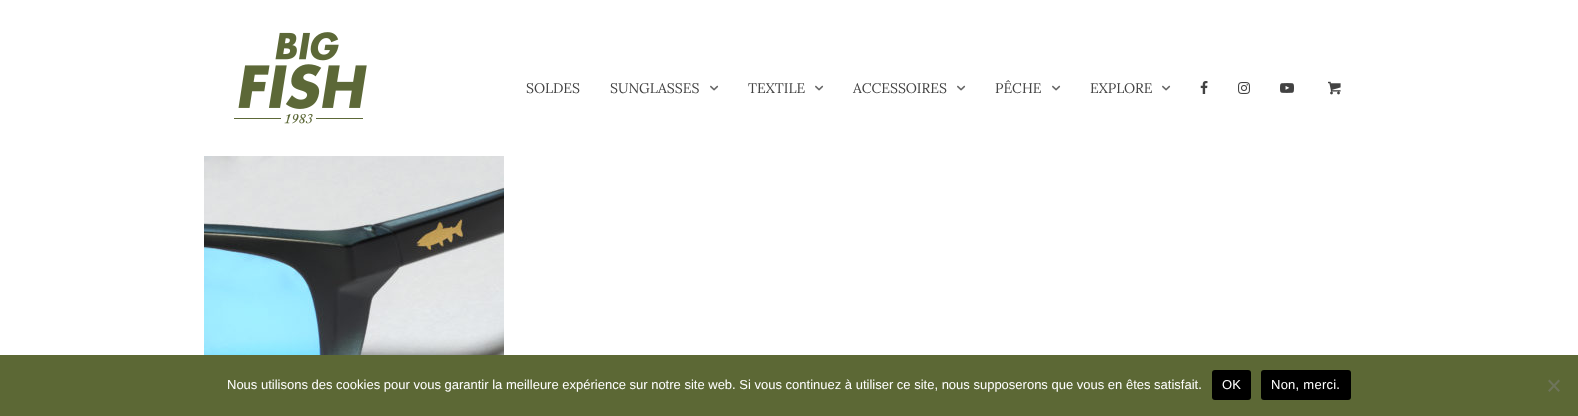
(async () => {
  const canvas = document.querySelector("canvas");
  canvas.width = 1578;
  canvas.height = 416;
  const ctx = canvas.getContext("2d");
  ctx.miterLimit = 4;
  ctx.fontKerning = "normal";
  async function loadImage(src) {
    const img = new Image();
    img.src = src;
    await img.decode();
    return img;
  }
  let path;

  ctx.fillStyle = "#ffffff";
  ctx.fillRect(0, 0, 1578, 416);
  ctx.drawImage(await loadImage("img/1.png"), 234, 32, 133, 92);
  ctx.drawImage(await loadImage("img/2.png"), 710, 85, 9, 6);
  ctx.drawImage(await loadImage("img/2.png"), 815, 85, 9, 6);
  ctx.drawImage(await loadImage("img/2.png"), 957, 85, 9, 6);
  ctx.drawImage(await loadImage("img/2.png"), 1052, 85, 9, 6);
  ctx.drawImage(await loadImage("img/2.png"), 1162, 85, 9, 6);
  ctx.drawImage(await loadImage("img/3.png"), 1200, 81, 8, 13);
  ctx.drawImage(await loadImage("img/4.png"), 1238, 82, 12, 12);
  ctx.drawImage(await loadImage("img/5.png"), 1280, 83, 14, 10);
  ctx.drawImage(await loadImage("img/6.png"), 1328, 81, 13, 14);
  ctx.drawImage(await loadImage("img/7.png"), 204, 156, 300, 199);
  ctx.fillStyle = "#5c6835";
  ctx.fillRect(0, 355, 1578, 61);
  ctx.fillStyle = "#000000";
  ctx.beginPath();
  ctx.roundRect(1212, 370, 39, 30, 3);
  ctx.fill();
  ctx.beginPath();
  ctx.roundRect(1261, 370, 90, 30, 3);
  ctx.fill();
  ctx.fillStyle = "#6e745b";
  path = new Path2D("M1558.5 379.5L1560 381L1549.5 392L1548 390.5Z");
  ctx.fill(path);
  path = new Path2D("M1548 381L1549.5 379.5L1560 390.5L1558.5 392Z");
  ctx.fill(path);
  ctx.font = "14px Lora";
  ctx.fillStyle = "#424242";
  for (const [text, x, y] of [
    ["SOLDES", 526, 93],
    ["SUNGLASSES", 610, 93],
    ["TEXTILE", 748, 93],
    ["ACCESSOIRES", 853, 93],
    ["PÊCHE", 995, 93],
    ["EXPLORE", 1090, 93],
  ]) {
    ctx.fillText(text, x, y);
  }
  ctx.font = "13px Liberation Sans";
  ctx.fillStyle = "#ffffff";
  ctx.fillText("Nous utilisons des cookies pour vous garantir la meilleure expérience sur notre site web. Si vous continuez à utiliser ce site, nous supposerons que vous en êtes satisfait.", 227, 389);
  ctx.letterSpacing = "0.25px";
  ctx.fillText("OK", 1222, 389);
  ctx.fillText("Non, merci.", 1271, 389);
})();
